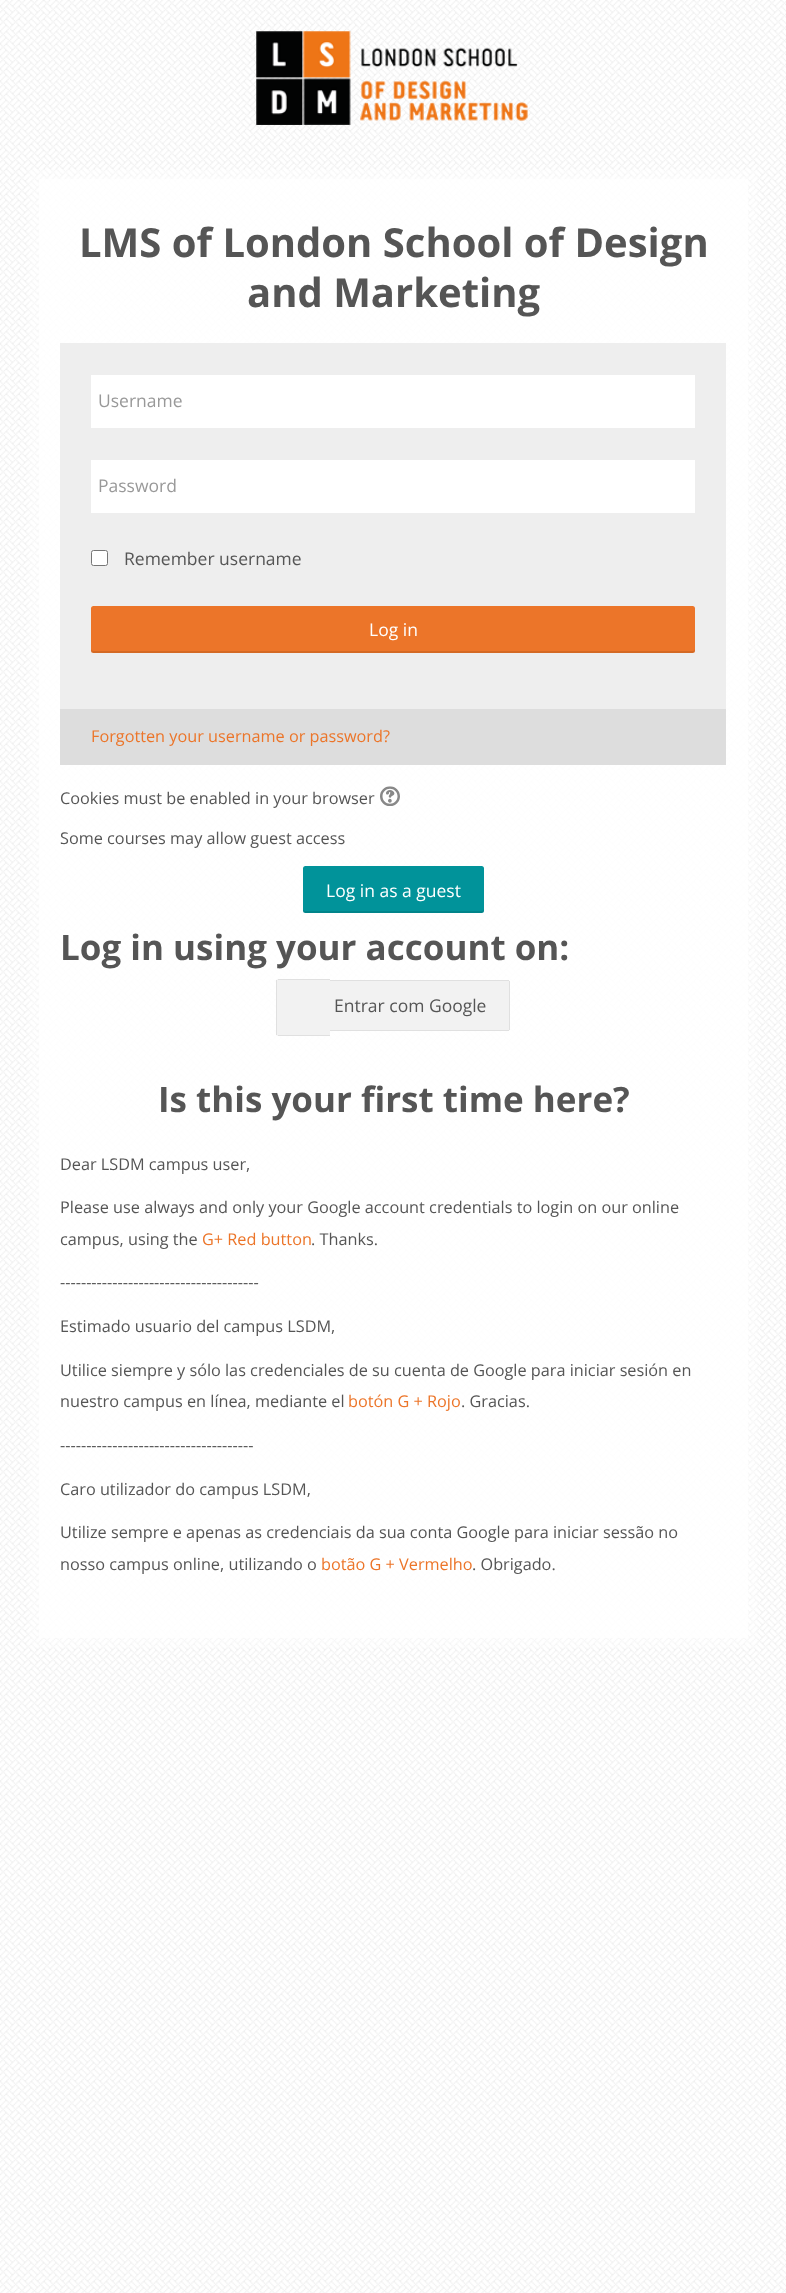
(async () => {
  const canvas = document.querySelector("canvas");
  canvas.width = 786;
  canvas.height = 2293;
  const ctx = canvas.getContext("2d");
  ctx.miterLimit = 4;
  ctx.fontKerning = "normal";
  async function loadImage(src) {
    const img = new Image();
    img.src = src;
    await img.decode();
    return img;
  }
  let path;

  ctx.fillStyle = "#ffffff";
  ctx.fillRect(0, 0, 786, 2293);
  ctx.drawImage(await loadImage("img/1.png"), 0, 0, 786, 2293);
  ctx.drawImage(await loadImage("img/2.png"), 256, 31, 272, 94);
  ctx.fillStyle = "rgba(255, 255, 255, 0.85)";
  ctx.fillRect(39, 179, 709, 1459);
  path = new Path2D("M34 174H752.5V1642.5H34Z");
  ctx.strokeStyle = "rgba(255, 255, 255, 0.35)";
  ctx.lineWidth = 10;
  ctx.stroke(path);
  for (const [x, y, w, h, color] of [
    [60, 343, 666, 366, "#eeeeee"],
    [91, 375, 604, 53, "#ffffff"],
    [91, 460, 604, 53, "#ffffff"],
  ]) {
    ctx.fillStyle = color;
    ctx.fillRect(x, y, w, h);
  }
  ctx.beginPath();
  ctx.roundRect(91.5, 550.5, 16, 15, 2);
  ctx.fill();
  ctx.strokeStyle = "#767676";
  ctx.lineWidth = 1;
  ctx.stroke();
  ctx.fillStyle = "#ec7529";
  ctx.beginPath();
  ctx.roundRect(91, 606, 604, 47, 2.5);
  ctx.fill();
  ctx.fillStyle = "rgba(0, 0, 0, 0.1)";
  path = new Path2D("M91 649V650C91 652 92 653 94 653H692C694 653 695 652 695 650V649C695 650 694 651 692 651H94C92 651 91 650 91 649Z");
  ctx.fill(path);
  ctx.fillStyle = "#dddddd";
  ctx.fillRect(60, 709, 666, 56);
  ctx.drawImage(await loadImage("img/3.png"), 380, 786, 20, 20);
  ctx.fillStyle = "#01939a";
  ctx.beginPath();
  ctx.roundRect(303, 866, 181, 47, 2.5);
  ctx.fill();
  ctx.fillStyle = "rgba(0, 0, 0, 0.1)";
  path = new Path2D("M303 910C303 912 304 913 306 913H482C483 913 484 912 484 910V909C484 910 483 911 481 911H305Z");
  ctx.fill(path);
  ctx.fillStyle = "#f2f2f2";
  ctx.beginPath();
  ctx.roundRect(276, 979, 54, 57, [2.5, 0, 0, 2.5]);
  ctx.fill();
  for (const [x, y, w, h, color] of [
    [278, 979, 52, 1, "#e0e0e0"],
    [278, 1035, 52, 1, "#e0e0e0"],
    [276, 980, 1, 55, "#e0e0e0"],
  ]) {
    ctx.fillStyle = color;
    ctx.fillRect(x, y, w, h);
  }
  ctx.fillStyle = "#f2f2f2";
  ctx.beginPath();
  ctx.roundRect(330, 980, 180, 51, [0, 2.5, 2.5, 0]);
  ctx.fill();
  for (const [x, y, w, h, color] of [
    [330, 980, 179, 1, "#e0e0e0"],
    [509, 981, 1, 49, "#e0e0e0"],
    [330, 1030, 179, 1, "#e0e0e0"],
  ]) {
    ctx.fillStyle = color;
    ctx.fillRect(x, y, w, h);
  }
  ctx.font = "bold 40px Open Sans";
  ctx.fillStyle = "#555555";
  ctx.fillText("LMS of London School of Design", 79, 257);
  ctx.fillText("and Marketing", 247, 307);
  ctx.font = "17.5px Open Sans";
  ctx.fillStyle = "#999999";
  ctx.fillText("Username", 98, 407);
  ctx.fillText("Password", 98, 492);
  ctx.fillStyle = "#555555";
  ctx.fillText("Remember username", 124, 565);
  ctx.fillStyle = "#ffffff";
  ctx.fillText("Log in", 369, 636);
  ctx.font = "16.25px Open Sans";
  ctx.fillStyle = "#ec7529";
  ctx.fillText("Forgotten your username or password?", 91, 742);
  ctx.fillStyle = "#555555";
  ctx.fillText("Cookies must be enabled in your browser", 60, 804);
  ctx.fillText("Some courses may allow guest access", 60, 844);
  ctx.font = "17.5px Open Sans";
  ctx.fillStyle = "#ffffff";
  ctx.fillText("Log in as a guest", 326, 897);
  ctx.font = "bold 35px Open Sans";
  ctx.fillStyle = "#555555";
  ctx.fillText("Log in using your account on:", 60, 960);
  ctx.font = "17.5px Open Sans";
  ctx.fillText("Entrar com Google", 334, 1012);
  ctx.font = "bold 35px Open Sans";
  ctx.fillText("Is this your first time here?", 158, 1112);
  ctx.font = "16.25px Open Sans";
  for (const [text, x, y] of [
    ["Dear LSDM campus user,", 60, 1170],
    ["Please use always and only your Google account credentials to login on our online", 60, 1213],
    ["campus, using the", 60, 1245],
  ]) {
    ctx.fillText(text, x, y);
  }
  ctx.fillStyle = "#ec7529";
  ctx.fillText("G+ Red button", 202, 1245);
  ctx.fillStyle = "#555555";
  for (const [text, x, y] of [
    [". Thanks.", 311, 1245],
    ["--------------------------------------", 60, 1288],
    ["Estimado usuario del campus LSDM,", 60, 1332],
    ["Utilice siempre y sólo las credenciales de su cuenta de Google para iniciar sesión en", 60, 1376],
    ["nuestro campus en línea, mediante el", 60, 1407],
  ]) {
    ctx.fillText(text, x, y);
  }
  ctx.fillStyle = "#ec7529";
  ctx.fillText("botón G + Rojo", 348, 1407);
  ctx.fillStyle = "#555555";
  for (const [text, x, y] of [
    [". Gracias.", 461, 1407],
    ["-------------------------------------", 60, 1451],
    ["Caro utilizador do campus LSDM,", 60, 1495],
    ["Utilize sempre e apenas as credenciais da sua conta Google para iniciar sessão no", 60, 1538],
    ["nosso campus online, utilizando o", 60, 1570],
  ]) {
    ctx.fillText(text, x, y);
  }
  ctx.fillStyle = "#ec7529";
  ctx.fillText("botão G + Vermelho", 321, 1570);
  ctx.fillStyle = "#555555";
  ctx.fillText(". Obrigado.", 472, 1570);
})();
